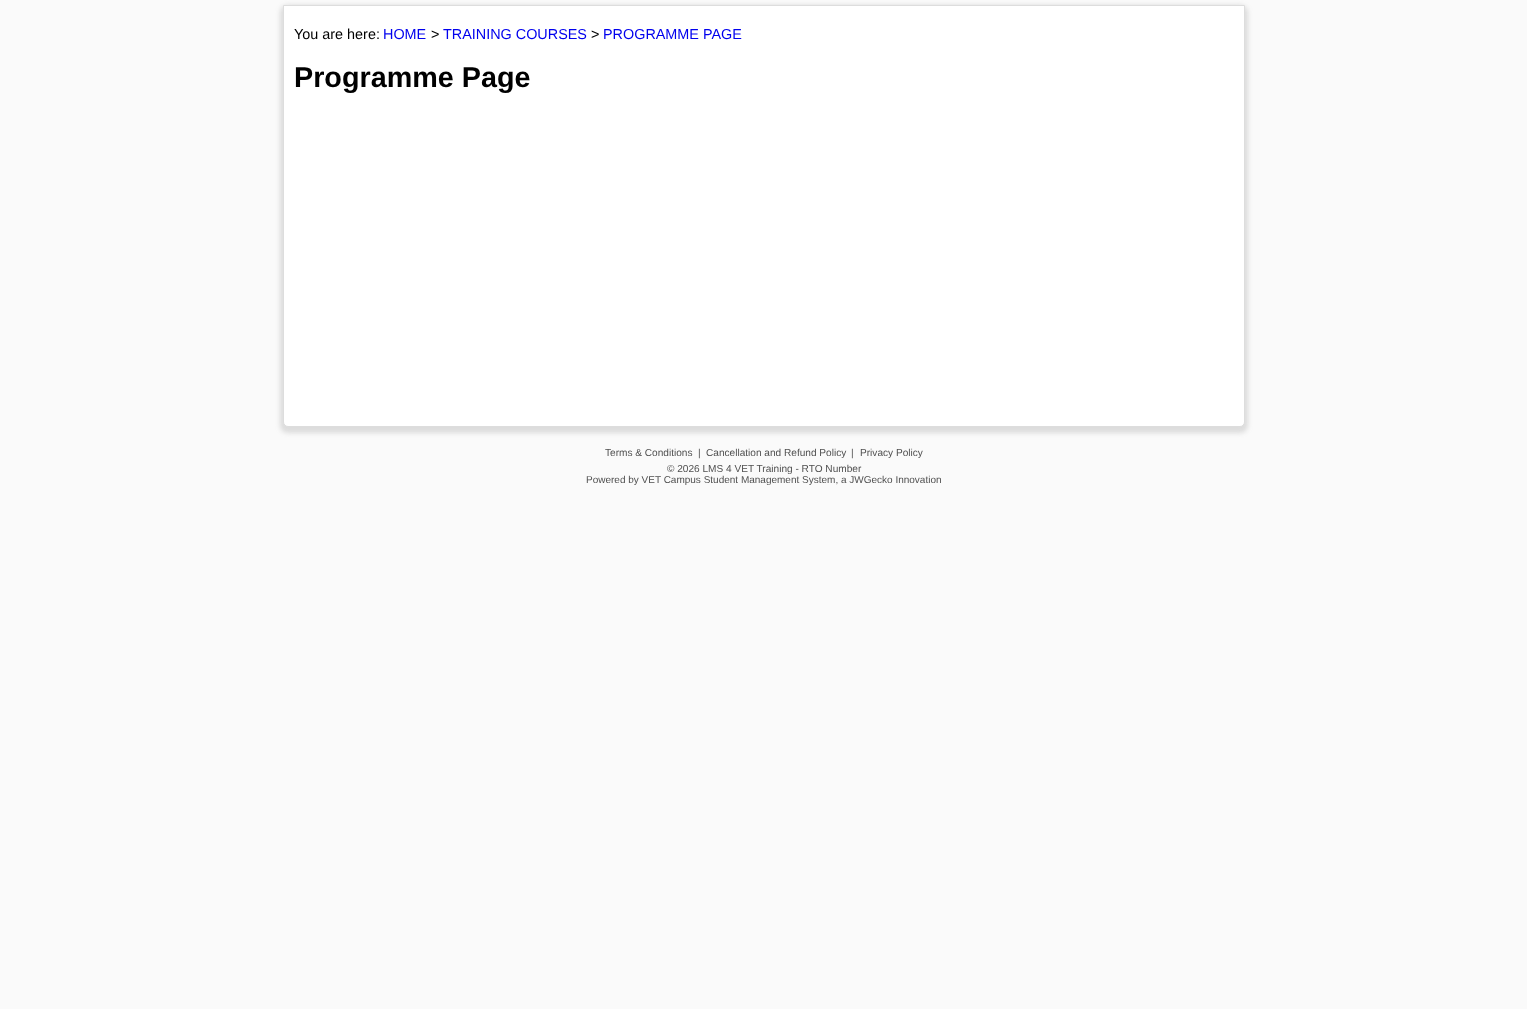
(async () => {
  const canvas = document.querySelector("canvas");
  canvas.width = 1527;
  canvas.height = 1009;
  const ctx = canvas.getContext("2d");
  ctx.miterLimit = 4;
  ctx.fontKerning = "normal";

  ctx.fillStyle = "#fafafa";
  ctx.fillRect(0, 0, 1527, 1009);
  ctx.fillStyle = "rgba(100, 100, 100, 0.2)";
  ctx.filter = "blur(2.5px)";
  ctx.beginPath();
  ctx.roundRect(280, 5, 968, 428, 8);
  ctx.fill();
  ctx.filter = "none";
  ctx.fillStyle = "#ffffff";
  ctx.beginPath();
  ctx.roundRect(283.5, 5.5, 961, 421, [0, 0, 4.5, 4.5]);
  ctx.fill();
  ctx.strokeStyle = "#dddddd";
  ctx.stroke();
  ctx.font = "14.4px Liberation Sans";
  ctx.fillStyle = "#000000";
  ctx.fillText("You are here:", 294, 39);
  ctx.fillStyle = "#0000ee";
  ctx.fillText("HOME", 383, 39);
  ctx.fillStyle = "#000000";
  ctx.fillText(">", 431, 39);
  ctx.fillStyle = "#0000ee";
  ctx.fillText("TRAINING COURSES", 443, 39);
  ctx.fillStyle = "#000000";
  ctx.fillText(">", 591, 39);
  ctx.fillStyle = "#0000ee";
  ctx.fillText("PROGRAMME PAGE", 603, 39);
  ctx.font = "bold 28.75px Liberation Sans";
  ctx.fillStyle = "#000000";
  ctx.fillText("Programme Page", 294, 87);
  ctx.font = "10.1px Liberation Sans";
  ctx.fillStyle = "#505050";
  for (const [text, x, y] of [
    ["Terms & Conditions", 605, 456],
    ["|", 698, 456],
    ["Cancellation and Refund Policy", 706, 456],
    ["|", 851, 456],
    ["Privacy Policy", 860, 456],
    ["© 2026 LMS 4 VET Training - RTO Number", 667, 472],
  ]) {
    ctx.fillText(text, x, y);
  }
  ctx.font = "10px Liberation Sans";
  ctx.fillText("Powered by VET Campus Student Management System, a JWGecko Innovation", 586, 483);
})();
